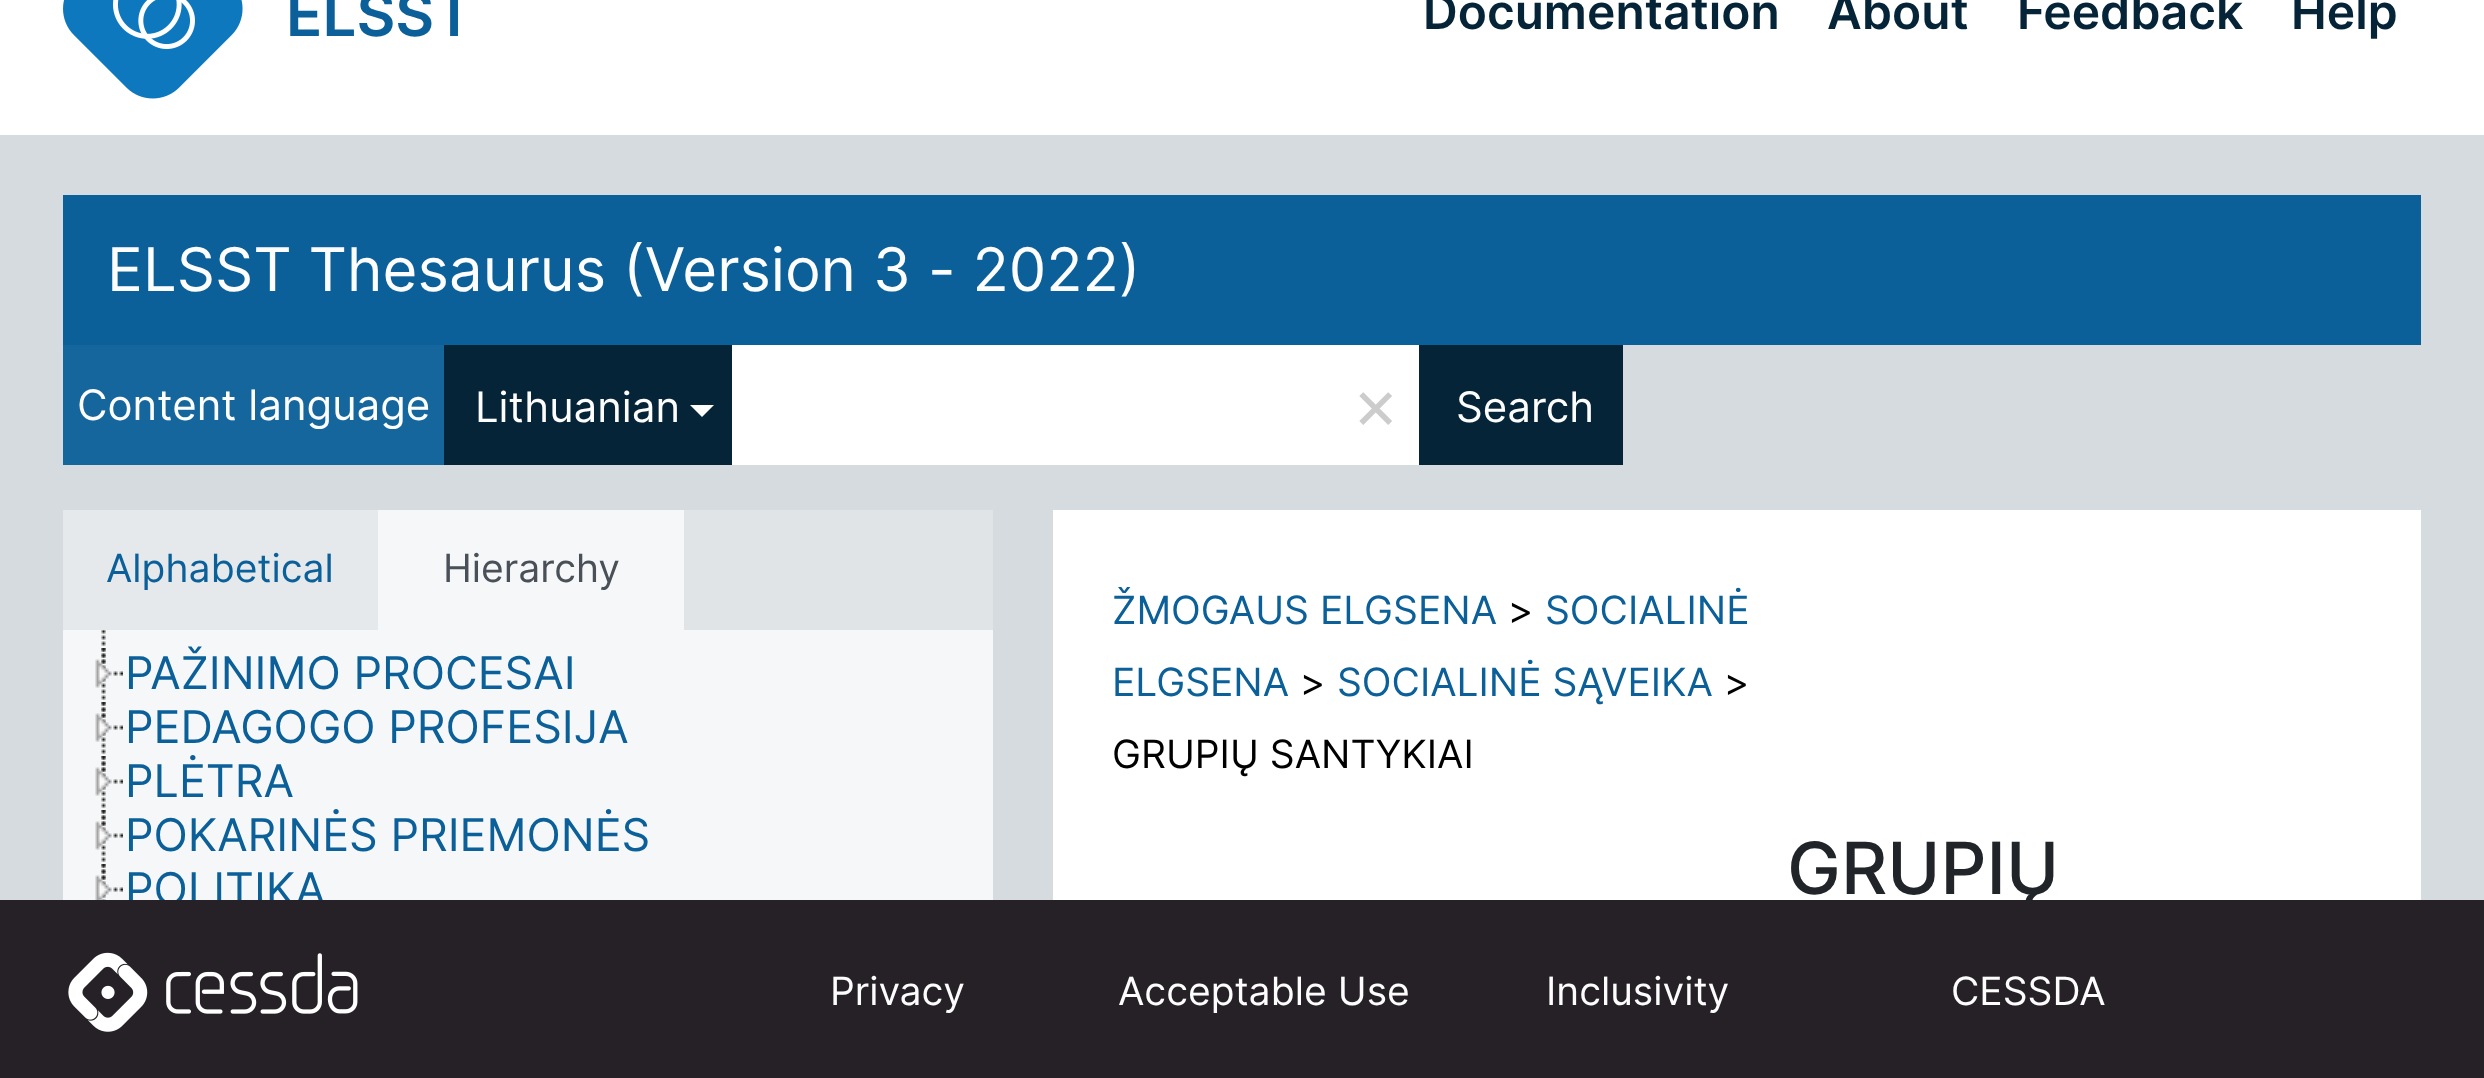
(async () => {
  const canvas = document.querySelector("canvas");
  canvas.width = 2484;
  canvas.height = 1078;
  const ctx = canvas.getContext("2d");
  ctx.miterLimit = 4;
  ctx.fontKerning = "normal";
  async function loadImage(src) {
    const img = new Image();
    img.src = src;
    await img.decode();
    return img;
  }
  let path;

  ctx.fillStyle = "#d5dbde";
  ctx.fillRect(0, 0, 2484, 1078);
  ctx.fillStyle = "#ffffff";
  ctx.fillRect(0, 0, 2484, 135);
  ctx.drawImage(await loadImage("img/1.png"), 63, 0, 180, 99);
  for (const [x, y, w, h, color] of [
    [63, 195, 2358, 150, "#0b6099"],
    [63, 345, 381, 120, "#15669c"],
    [444, 345, 288, 120, "#052438"],
  ]) {
    ctx.fillStyle = color;
    ctx.fillRect(x, y, w, h);
  }
  ctx.fillStyle = "#ffffff";
  path = new Path2D("M690 405H714L702 417Z");
  ctx.fill(path);
  for (const [x, y, w, h, color] of [
    [732, 345, 687, 120, "#ffffff"],
    [1419, 345, 204, 120, "#052438"],
    [684, 510, 309, 120, "#e0e4e7"],
    [63, 510, 315, 120, "#e6e9eb"],
    [378, 510, 306, 120, "#f6f7f8"],
    [63, 630, 930, 270, "#f6f7f8"],
  ]) {
    ctx.fillStyle = color;
    ctx.fillRect(x, y, w, h);
  }
  ctx.drawImage(await loadImage("img/2.png"), 101, 630, 5, 16);
  ctx.drawImage(await loadImage("img/3.png"), 101, 648, 5, 52);
  ctx.drawImage(await loadImage("img/4.png"), 95, 648, 28, 40);
  ctx.drawImage(await loadImage("img/3.png"), 101, 702, 5, 52);
  ctx.drawImage(await loadImage("img/4.png"), 95, 702, 28, 40);
  ctx.drawImage(await loadImage("img/3.png"), 101, 756, 5, 52);
  ctx.drawImage(await loadImage("img/4.png"), 95, 756, 28, 40);
  ctx.drawImage(await loadImage("img/3.png"), 101, 810, 5, 52);
  ctx.drawImage(await loadImage("img/4.png"), 95, 810, 28, 40);
  ctx.drawImage(await loadImage("img/5.png"), 101, 864, 5, 36);
  ctx.drawImage(await loadImage("img/6.png"), 95, 864, 28, 36);
  ctx.fillStyle = "#ffffff";
  ctx.fillRect(1053, 510, 1368, 390);
  ctx.font = "600 60px Inter";
  ctx.fillStyle = "#0b6099";
  ctx.fillText("ELSST", 286, 36);
  ctx.font = "600 48px Inter";
  ctx.fillStyle = "#052438";
  for (const [text, x, y] of [
    ["Documentation", 1423, 29],
    ["About", 1827, 29],
    ["Feedback", 2017, 29],
    ["Help", 2291, 29],
  ]) {
    ctx.fillText(text, x, y);
  }
  ctx.font = "60px Inter";
  ctx.fillStyle = "#fdfdfe";
  ctx.fillText("ELSST Thesaurus (Version 3 - 2022)", 107, 291);
  ctx.font = "42px Inter";
  ctx.fillText("Content language", 77, 420);
  ctx.fillText("Lithuanian", 475, 422);
  ctx.font = "72px Inter";
  ctx.fillStyle = "#cccccc";
  ctx.fillText("×", 1352, 429);
  ctx.font = "42px Inter";
  ctx.fillStyle = "#fdfdfe";
  ctx.fillText("Search", 1456, 422);
  ctx.font = "39px Inter";
  ctx.fillStyle = "#0b6099";
  ctx.fillText("Alphabetical", 106, 582);
  ctx.fillStyle = "#495057";
  ctx.fillText("Hierarchy", 443, 582);
  ctx.font = "45px Inter";
  ctx.fillStyle = "#0b6099";
  for (const [text, x, y] of [
    ["PAŽINIMO PROCESAI", 125, 689],
    ["PEDAGOGO PROFESIJA", 125, 743],
    ["PLĖTRA", 125, 797],
    ["POKARINĖS PRIEMONĖS", 125, 851],
    ["POLITIKA", 125, 905],
  ]) {
    ctx.fillText(text, x, y);
  }
  ctx.font = "39px Inter";
  ctx.fillText("ŽMOGAUS ELGSENA", 1112, 624);
  ctx.fillStyle = "#000000";
  ctx.fillText(">", 1508, 624);
  ctx.fillStyle = "#0b6099";
  ctx.fillText("SOCIALINĖ", 1545, 624);
  ctx.fillText("ELGSENA", 1112, 696);
  ctx.fillStyle = "#000000";
  ctx.fillText(">", 1300, 696);
  ctx.fillStyle = "#0b6099";
  ctx.fillText("SOCIALINĖ SĄVEIKA", 1337, 696);
  ctx.fillStyle = "#000000";
  ctx.fillText(">", 1724, 696);
  ctx.fillText("GRUPIŲ SANTYKIAI", 1112, 768);
  ctx.font = "500 72px Inter";
  ctx.fillStyle = "#212529";
  ctx.fillText("GRUPIŲ", 1787, 894);
  ctx.fillStyle = "#262126";
  ctx.fillRect(0, 900, 2484, 178);
  ctx.drawImage(await loadImage("img/7.png"), 68, 952, 290, 80);
  ctx.font = "39px Inter";
  ctx.fillStyle = "#fdfdfe";
  for (const [text, x, y] of [
    ["Privacy", 830, 1005],
    ["Acceptable Use", 1118, 1005],
    ["Inclusivity", 1546, 1005],
    ["CESSDA", 1951, 1005],
  ]) {
    ctx.fillText(text, x, y);
  }
})();
